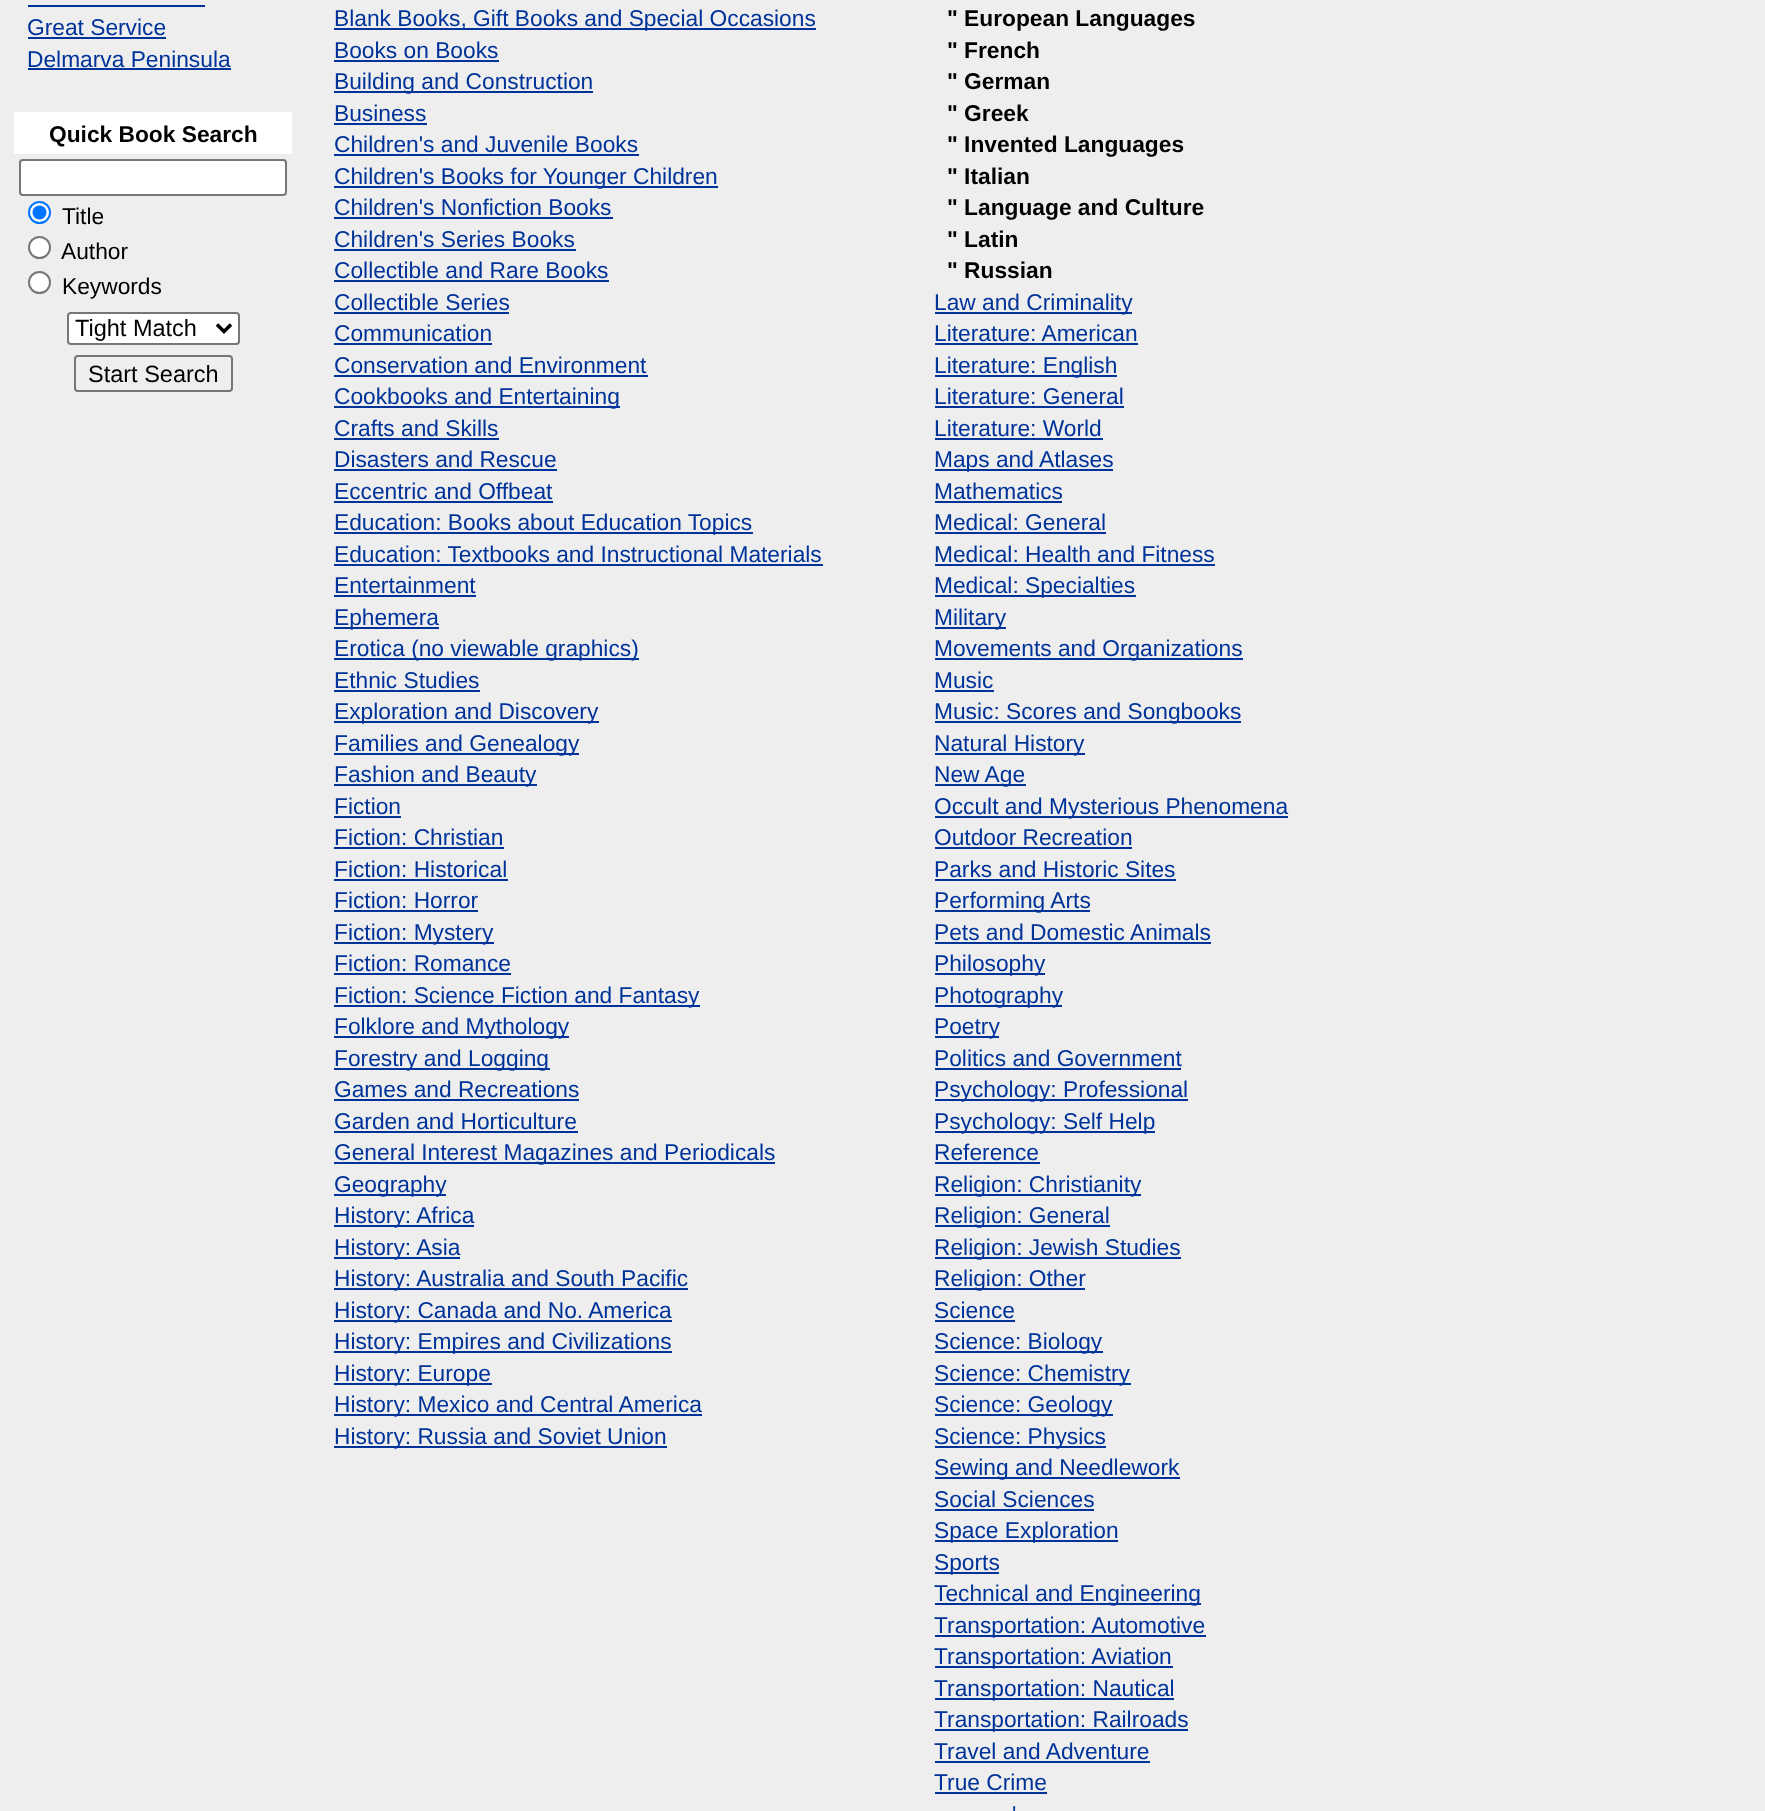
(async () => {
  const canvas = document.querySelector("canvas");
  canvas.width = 1765;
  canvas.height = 1811;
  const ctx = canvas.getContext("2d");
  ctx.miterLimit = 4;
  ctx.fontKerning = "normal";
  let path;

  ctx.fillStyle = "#eeeeee";
  ctx.fillRect(0, 0, 1765, 1811);
  for (const [x, y, w, h, color] of [
    [28, 5, 177, 2, "#003399"],
    [28, 37, 138, 2, "#003399"],
    [28, 68, 203, 2, "#003399"],
    [14, 112, 278, 42, "#ffffff"],
  ]) {
    ctx.fillStyle = color;
    ctx.fillRect(x, y, w, h);
  }
  ctx.beginPath();
  ctx.roundRect(20, 160, 266, 35, 3);
  ctx.fill();
  ctx.strokeStyle = "#767676";
  ctx.lineWidth = 2;
  ctx.stroke();
  ctx.beginPath();
  ctx.arc(39.5, 212.5, 10.5, 0, Math.PI * 2);
  ctx.fill();
  ctx.strokeStyle = "#0075ff";
  ctx.stroke();
  ctx.fillStyle = "#0075ff";
  ctx.beginPath();
  ctx.arc(39.5, 212.5, 7, 0, Math.PI * 2);
  ctx.fill();
  ctx.fillStyle = "#ffffff";
  ctx.beginPath();
  ctx.arc(39.5, 247.5, 10.5, 0, Math.PI * 2);
  ctx.fill();
  ctx.strokeStyle = "#767676";
  ctx.stroke();
  ctx.beginPath();
  ctx.arc(39.5, 282.5, 10.5, 0, Math.PI * 2);
  ctx.fill();
  ctx.stroke();
  ctx.beginPath();
  ctx.roundRect(68, 313, 171, 31, 3);
  ctx.fill();
  ctx.stroke();
  path = new Path2D("M217 324.5L224 331.5L231 324.5");
  ctx.strokeStyle = "#000000";
  ctx.lineWidth = 3.5;
  ctx.stroke(path);
  ctx.beginPath();
  ctx.roundRect(75, 356, 157, 35, 3);
  ctx.strokeStyle = "#767676";
  ctx.lineWidth = 2;
  ctx.stroke();
  for (const [x, y, w, h, color] of [
    [334, 28, 482, 2, "#003399"],
    [334, 60, 165, 2, "#003399"],
    [334, 91, 259, 2, "#003399"],
    [334, 123, 93, 2, "#003399"],
    [334, 154, 305, 2, "#003399"],
    [334, 186, 384, 2, "#003399"],
    [334, 217, 279, 2, "#003399"],
    [334, 249, 242, 2, "#003399"],
    [334, 280, 275, 2, "#003399"],
    [334, 312, 175, 2, "#003399"],
    [334, 343, 158, 2, "#003399"],
    [334, 375, 314, 2, "#003399"],
    [334, 406, 286, 2, "#003399"],
    [334, 438, 165, 2, "#003399"],
    [334, 469, 223, 2, "#003399"],
    [334, 501, 219, 2, "#003399"],
    [334, 532, 419, 2, "#003399"],
    [334, 564, 489, 2, "#003399"],
    [334, 595, 142, 2, "#003399"],
    [334, 627, 105, 2, "#003399"],
    [334, 658, 305, 2, "#003399"],
    [334, 690, 146, 2, "#003399"],
    [334, 721, 265, 2, "#003399"],
    [334, 753, 245, 2, "#003399"],
    [334, 784, 203, 2, "#003399"],
    [334, 816, 67, 2, "#003399"],
    [334, 847, 170, 2, "#003399"],
    [334, 879, 174, 2, "#003399"],
    [334, 910, 144, 2, "#003399"],
    [334, 942, 160, 2, "#003399"],
    [334, 973, 177, 2, "#003399"],
    [334, 1005, 366, 2, "#003399"],
    [334, 1036, 235, 2, "#003399"],
    [334, 1068, 216, 2, "#003399"],
    [334, 1099, 245, 2, "#003399"],
    [334, 1131, 244, 2, "#003399"],
    [334, 1162, 441, 2, "#003399"],
    [334, 1194, 112, 2, "#003399"],
    [334, 1225, 140, 2, "#003399"],
    [334, 1257, 126, 2, "#003399"],
    [334, 1288, 354, 2, "#003399"],
    [334, 1320, 338, 2, "#003399"],
    [334, 1351, 338, 2, "#003399"],
    [334, 1383, 158, 2, "#003399"],
    [334, 1414, 368, 2, "#003399"],
    [334, 1446, 333, 2, "#003399"],
    [935, 312, 197, 2, "#003399"],
    [935, 343, 203, 2, "#003399"],
    [935, 375, 182, 2, "#003399"],
    [935, 406, 189, 2, "#003399"],
    [935, 438, 168, 2, "#003399"],
    [935, 469, 178, 2, "#003399"],
    [935, 501, 127, 2, "#003399"],
    [935, 532, 171, 2, "#003399"],
    [935, 564, 280, 2, "#003399"],
    [935, 595, 201, 2, "#003399"],
    [935, 627, 71, 2, "#003399"],
    [935, 658, 308, 2, "#003399"],
    [935, 690, 59, 2, "#003399"],
    [935, 721, 306, 2, "#003399"],
    [935, 753, 150, 2, "#003399"],
    [935, 784, 91, 2, "#003399"],
    [935, 816, 353, 2, "#003399"],
    [935, 847, 197, 2, "#003399"],
    [935, 879, 241, 2, "#003399"],
    [935, 910, 155, 2, "#003399"],
    [935, 942, 276, 2, "#003399"],
    [935, 973, 110, 2, "#003399"],
    [935, 1005, 127, 2, "#003399"],
    [935, 1036, 64, 2, "#003399"],
    [935, 1068, 246, 2, "#003399"],
    [935, 1099, 253, 2, "#003399"],
    [935, 1131, 220, 2, "#003399"],
    [935, 1162, 105, 2, "#003399"],
    [935, 1194, 206, 2, "#003399"],
    [935, 1225, 175, 2, "#003399"],
    [935, 1257, 246, 2, "#003399"],
    [935, 1288, 150, 2, "#003399"],
    [935, 1320, 80, 2, "#003399"],
    [935, 1351, 168, 2, "#003399"],
    [935, 1383, 196, 2, "#003399"],
    [935, 1414, 178, 2, "#003399"],
    [935, 1446, 171, 2, "#003399"],
    [935, 1477, 245, 2, "#003399"],
    [935, 1509, 159, 2, "#003399"],
    [935, 1540, 183, 2, "#003399"],
    [935, 1572, 64, 2, "#003399"],
    [935, 1603, 266, 2, "#003399"],
    [935, 1635, 271, 2, "#003399"],
    [935, 1666, 238, 2, "#003399"],
    [935, 1698, 239, 2, "#003399"],
    [935, 1729, 253, 2, "#003399"],
    [935, 1761, 215, 2, "#003399"],
    [935, 1792, 112, 2, "#003399"],
  ]) {
    ctx.fillStyle = color;
    ctx.fillRect(x, y, w, h);
  }
  ctx.font = "22.75px Liberation Sans";
  ctx.fillText("Great Service", 27, 35);
  ctx.fillText("Delmarva Peninsula", 27, 67);
  ctx.font = "bold 22.75px Liberation Sans";
  ctx.fillStyle = "#000000";
  ctx.fillText("Quick Book Search", 49, 142);
  ctx.font = "22.75px Liberation Sans";
  for (const [text, x, y] of [
    ["Title", 62, 224],
    ["Author", 61, 259],
    ["Keywords", 62, 294],
  ]) {
    ctx.fillText(text, x, y);
  }
  ctx.font = "23.5px Liberation Sans";
  ctx.fillText("Tight Match", 75, 336);
  ctx.fillText("Start Search", 88, 382);
  ctx.font = "22.75px Liberation Sans";
  ctx.fillStyle = "#003399";
  for (const [text, x, y] of [
    ["Blank Books, Gift Books and Special Occasions", 334, 26],
    ["Books on Books", 334, 58],
    ["Building and Construction", 334, 89],
    ["Business", 334, 121],
    ["Children's and Juvenile Books", 334, 152],
    ["Children's Books for Younger Children", 334, 184],
    ["Children's Nonfiction Books", 334, 215],
    ["Children's Series Books", 334, 247],
    ["Collectible and Rare Books", 334, 278],
    ["Collectible Series", 334, 310],
    ["Communication", 334, 341],
    ["Conservation and Environment", 334, 373],
    ["Cookbooks and Entertaining", 334, 404],
    ["Crafts and Skills", 334, 436],
    ["Disasters and Rescue", 334, 467],
    ["Eccentric and Offbeat", 334, 499],
    ["Education: Books about Education Topics", 334, 530],
    ["Education: Textbooks and Instructional Materials", 334, 562],
    ["Entertainment", 334, 593],
    ["Ephemera", 334, 625],
    ["Erotica (no viewable graphics)", 334, 656],
    ["Ethnic Studies", 334, 688],
    ["Exploration and Discovery", 334, 719],
    ["Families and Genealogy", 334, 751],
    ["Fashion and Beauty", 334, 782],
    ["Fiction", 334, 814],
    ["Fiction: Christian", 334, 845],
    ["Fiction: Historical", 334, 877],
    ["Fiction: Horror", 334, 908],
    ["Fiction: Mystery", 334, 940],
    ["Fiction: Romance", 334, 971],
    ["Fiction: Science Fiction and Fantasy", 334, 1003],
    ["Folklore and Mythology", 334, 1034],
    ["Forestry and Logging", 334, 1066],
    ["Games and Recreations", 334, 1097],
    ["Garden and Horticulture", 334, 1129],
    ["General Interest Magazines and Periodicals", 334, 1160],
    ["Geography", 334, 1192],
    ["History: Africa", 334, 1223],
    ["History: Asia", 334, 1255],
    ["History: Australia and South Pacific", 334, 1286],
    ["History: Canada and No. America", 334, 1318],
    ["History: Empires and Civilizations", 334, 1349],
    ["History: Europe", 334, 1381],
    ["History: Mexico and Central America", 334, 1412],
    ["History: Russia and Soviet Union", 334, 1444],
  ]) {
    ctx.fillText(text, x, y);
  }
  ctx.font = "bold 22.75px Liberation Sans";
  ctx.fillStyle = "#000000";
  for (const [text, x, y] of [
    ["\" European Languages", 947, 26],
    ["\" French", 947, 58],
    ["\" German", 947, 89],
    ["\" Greek", 947, 121],
    ["\" Invented Languages", 947, 152],
    ["\" Italian", 947, 184],
    ["\" Language and Culture", 947, 215],
    ["\" Latin", 947, 247],
    ["\" Russian", 947, 278],
  ]) {
    ctx.fillText(text, x, y);
  }
  ctx.font = "22.75px Liberation Sans";
  ctx.fillStyle = "#003399";
  for (const [text, x, y] of [
    ["Law and Criminality", 934, 310],
    ["Literature: American", 934, 341],
    ["Literature: English", 934, 373],
    ["Literature: General", 934, 404],
    ["Literature: World", 934, 436],
    ["Maps and Atlases", 934, 467],
    ["Mathematics", 934, 499],
    ["Medical: General", 934, 530],
    ["Medical: Health and Fitness", 934, 562],
    ["Medical: Specialties", 934, 593],
    ["Military", 934, 625],
    ["Movements and Organizations", 934, 656],
    ["Music", 934, 688],
    ["Music: Scores and Songbooks", 934, 719],
    ["Natural History", 934, 751],
    ["New Age", 934, 782],
    ["Occult and Mysterious Phenomena", 934, 814],
    ["Outdoor Recreation", 934, 845],
    ["Parks and Historic Sites", 934, 877],
    ["Performing Arts", 934, 908],
    ["Pets and Domestic Animals", 934, 940],
    ["Philosophy", 934, 971],
    ["Photography", 934, 1003],
    ["Poetry", 934, 1034],
    ["Politics and Government", 934, 1066],
    ["Psychology: Professional", 934, 1097],
    ["Psychology: Self Help", 934, 1129],
    ["Reference", 934, 1160],
    ["Religion: Christianity", 934, 1192],
    ["Religion: General", 934, 1223],
    ["Religion: Jewish Studies", 934, 1255],
    ["Religion: Other", 934, 1286],
    ["Science", 934, 1318],
    ["Science: Biology", 934, 1349],
    ["Science: Chemistry", 934, 1381],
    ["Science: Geology", 934, 1412],
    ["Science: Physics", 934, 1444],
    ["Sewing and Needlework", 934, 1475],
    ["Social Sciences", 934, 1507],
    ["Space Exploration", 934, 1538],
    ["Sports", 934, 1570],
    ["Technical and Engineering", 934, 1601],
    ["Transportation: Automotive", 934, 1633],
    ["Transportation: Aviation", 934, 1664],
    ["Transportation: Nautical", 934, 1696],
    ["Transportation: Railroads", 934, 1727],
    ["Travel and Adventure", 934, 1759],
    ["True Crime", 934, 1790],
    ["'", 1012, 1822],
  ]) {
    ctx.fillText(text, x, y);
  }
})();
